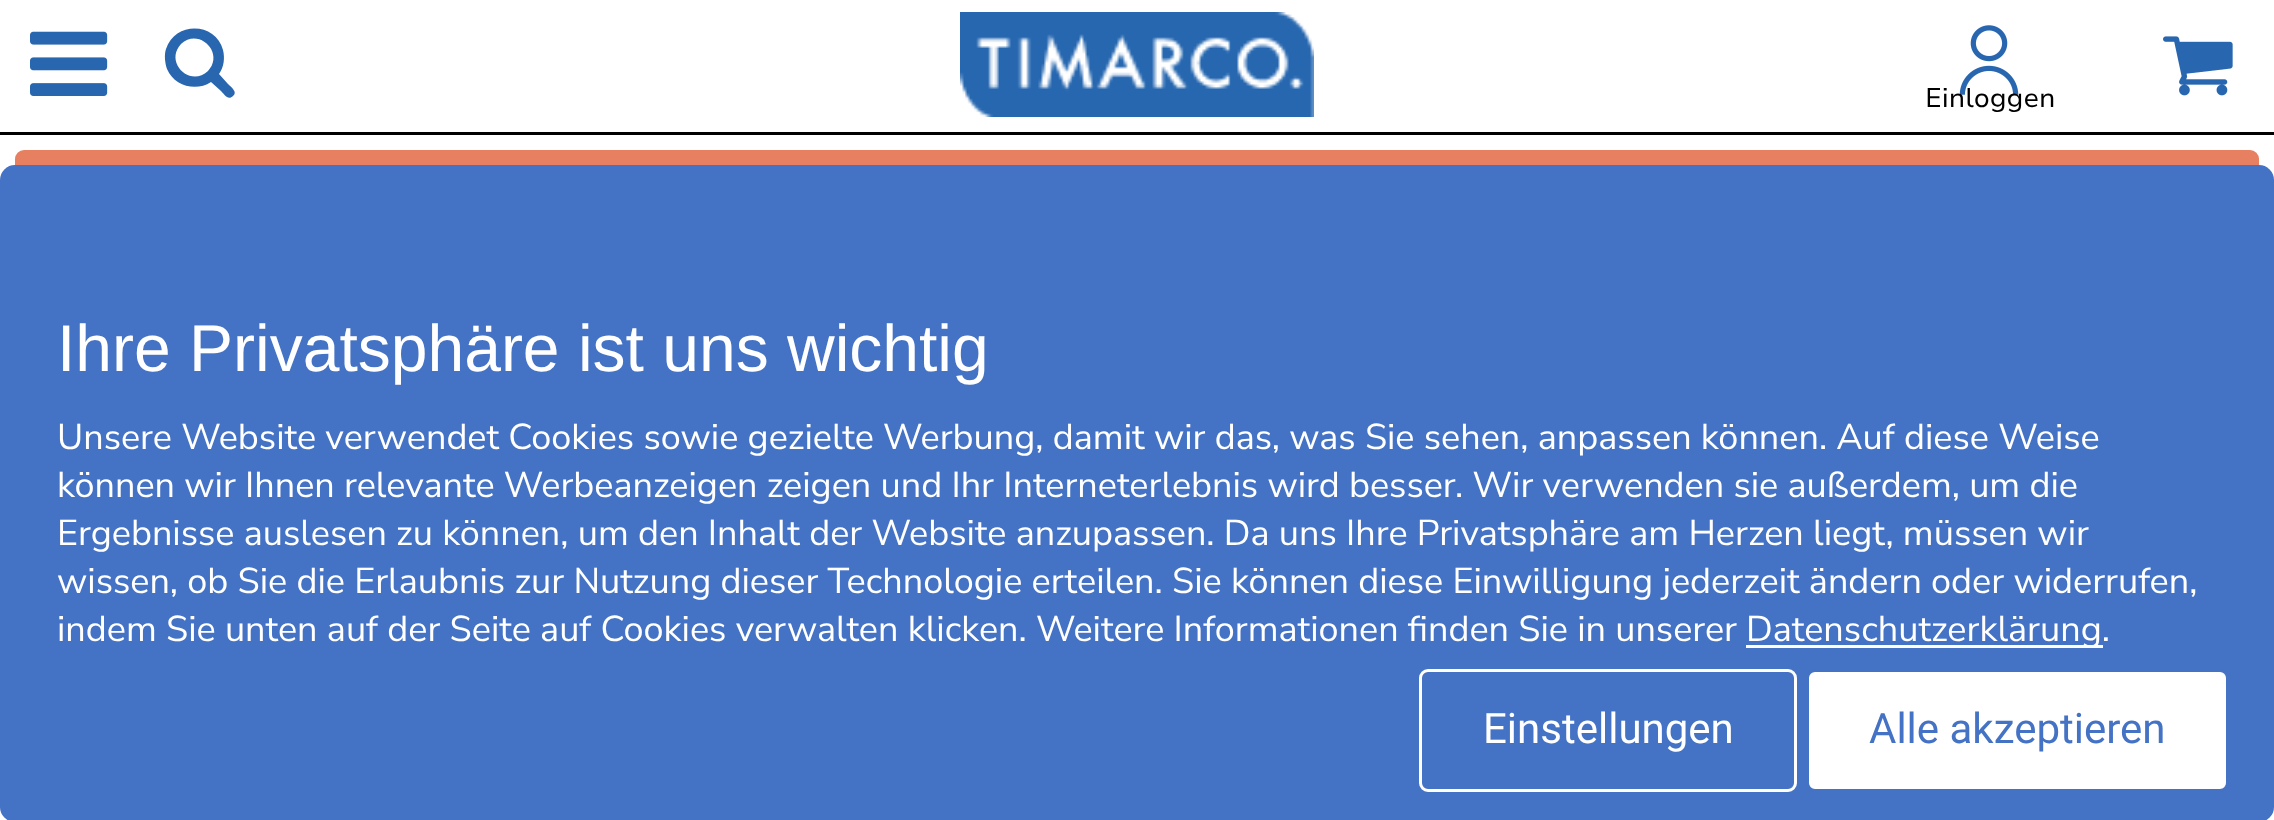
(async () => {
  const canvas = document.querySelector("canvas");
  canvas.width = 2274;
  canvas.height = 820;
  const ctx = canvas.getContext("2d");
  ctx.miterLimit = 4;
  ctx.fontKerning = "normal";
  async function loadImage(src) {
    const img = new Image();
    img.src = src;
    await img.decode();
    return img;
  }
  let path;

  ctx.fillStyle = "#ffffff";
  ctx.fillRect(0, 0, 2274, 820);
  ctx.fillStyle = "#000000";
  ctx.fillRect(0, 132, 2274, 3);
  ctx.drawImage(await loadImage("img/1.png"), 30, 31, 78, 65);
  ctx.fillStyle = "#2867af";
  path = new Path2D("M167 69C165 63 164 55 166 49C175 21 216 22 223 50C225 58 224 67 219 74L228 84C231 87 238 92 233 96C228 101 224 94 221 91L211 82C196 92 174 86 167 69ZM181 44C164 62 190 88 208 71C225 53 199 27 181 44Z");
  ctx.fill(path);
  ctx.drawImage(await loadImage("img/2.png"), 960, 12, 354, 105);
  ctx.drawImage(await loadImage("img/3.png"), 2163, 36, 70, 60);
  ctx.drawImage(await loadImage("img/4.png"), 1959, 25, 60, 70);
  ctx.fillStyle = "#e68061";
  ctx.beginPath();
  ctx.roundRect(15, 150, 2244, 150, 9);
  ctx.fill();
  ctx.fillStyle = "#4472c4";
  ctx.beginPath();
  ctx.roundRect(0, 165, 2274, 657, 15);
  ctx.fill();
  ctx.fillStyle = "#ffffff";
  ctx.fillRect(1746, 645, 357, 3);
  ctx.beginPath();
  ctx.roundRect(1420.5, 670.5, 375, 120, 7.5);
  ctx.strokeStyle = "#ffffff";
  ctx.lineWidth = 3;
  ctx.stroke();
  ctx.beginPath();
  ctx.roundRect(1807.5, 670.5, 420, 120, 7.5);
  ctx.fill();
  ctx.strokeStyle = "#4472c4";
  ctx.stroke();
  ctx.font = "27px Nunito Sans";
  ctx.fillStyle = "#000000";
  ctx.fillText("Einloggen", 1925, 107);
  ctx.font = "66px Liberation Sans";
  ctx.fillStyle = "#ffffff";
  ctx.fillText("Ihre Privatsphäre ist uns wichtig", 57, 371);
  ctx.font = "36px 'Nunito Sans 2'";
  for (const [text, x, y] of [
    ["Unsere Website verwendet Cookies sowie gezielte Werbung, damit wir das, was Sie sehen, anpassen können. Auf diese Weise", 57, 449],
    ["können wir Ihnen relevante Werbeanzeigen zeigen und Ihr Interneterlebnis wird besser. Wir verwenden sie außerdem, um die", 57, 497],
    ["Ergebnisse auslesen zu können, um den Inhalt der Website anzupassen. Da uns Ihre Privatsphäre am Herzen liegt, müssen wir", 57, 545],
    ["wissen, ob Sie die Erlaubnis zur Nutzung dieser Technologie erteilen. Sie können diese Einwilligung jederzeit ändern oder widerrufen,", 57, 593],
    ["indem Sie unten auf der Seite auf Cookies verwalten klicken. Weitere Informationen finden Sie in unserer", 57, 641],
    ["Datenschutzerklärung.", 1746, 641],
  ]) {
    ctx.fillText(text, x, y);
  }
  ctx.font = "42px Roboto";
  ctx.fillText("Einstellungen", 1483, 743);
  ctx.fillStyle = "#4472c4";
  ctx.fillText("Alle akzeptieren", 1869, 743);
})();
